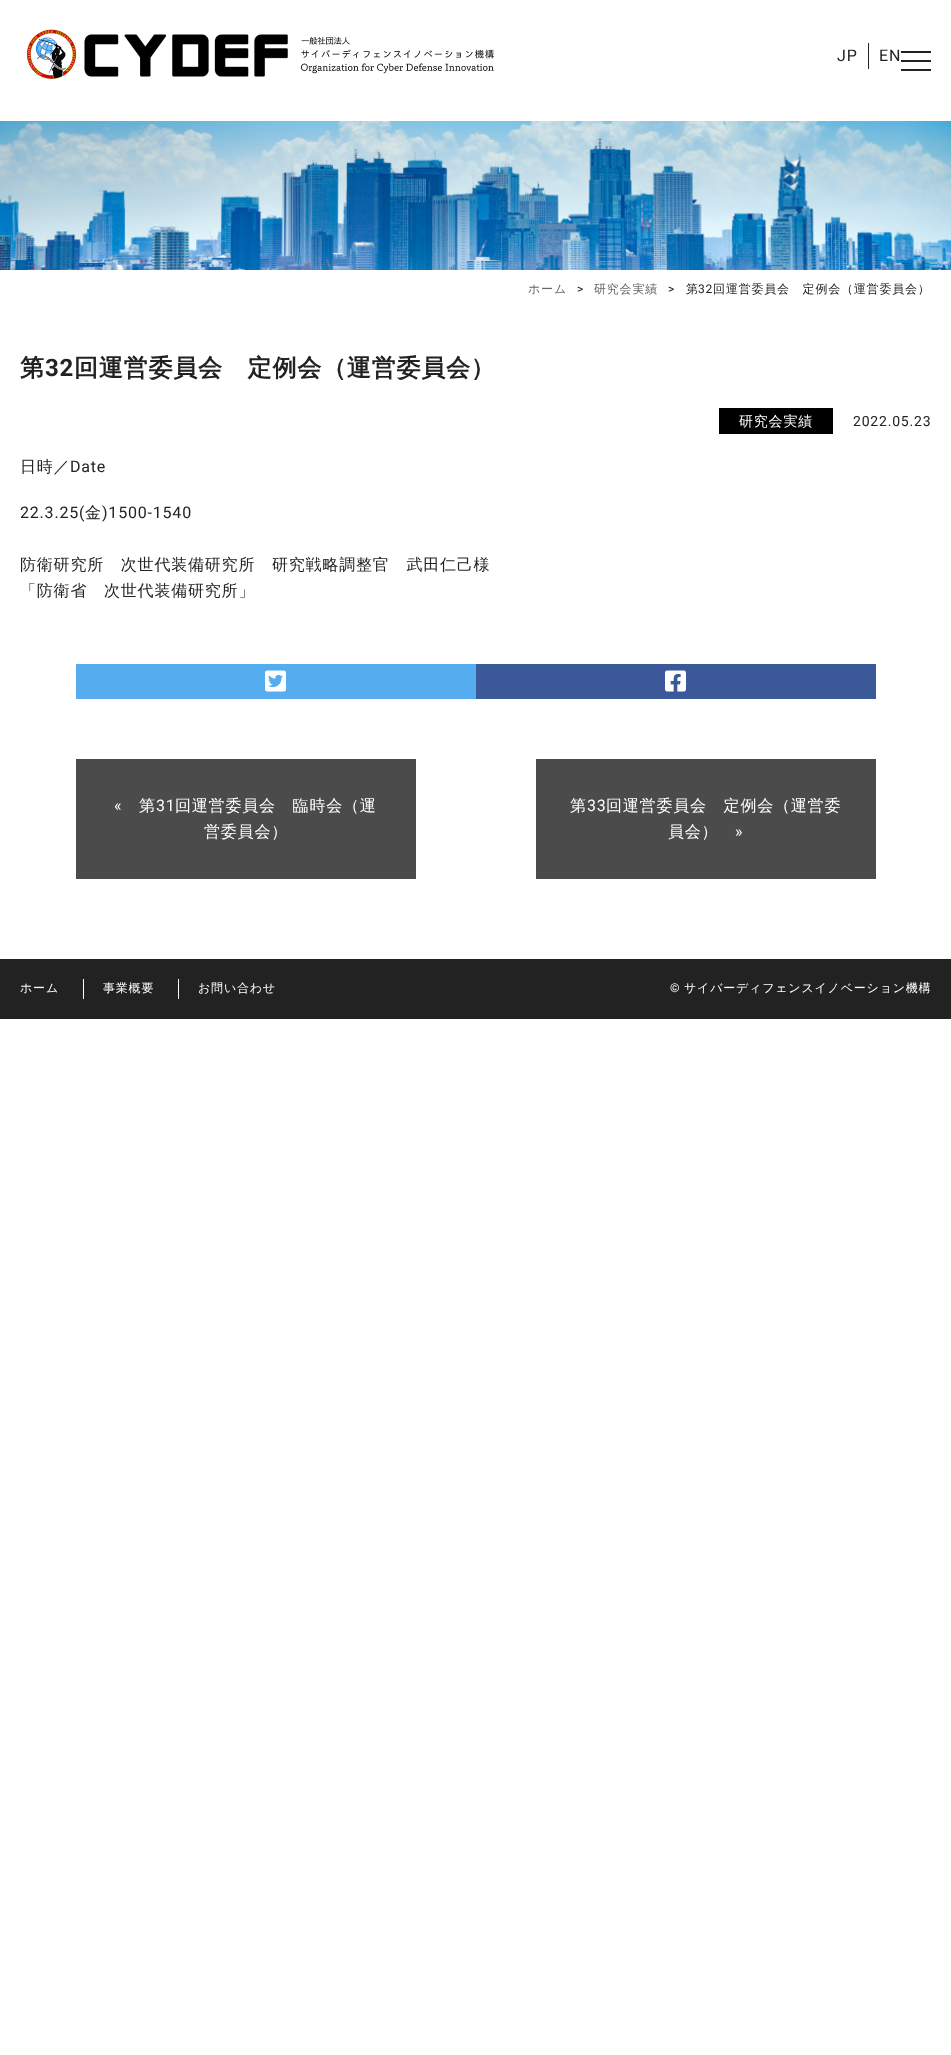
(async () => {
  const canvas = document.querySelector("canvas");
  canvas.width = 951;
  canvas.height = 2055;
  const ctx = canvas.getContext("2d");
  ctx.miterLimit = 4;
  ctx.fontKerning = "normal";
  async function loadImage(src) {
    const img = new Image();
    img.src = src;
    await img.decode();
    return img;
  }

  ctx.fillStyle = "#ffffff";
  ctx.fillRect(0, 0, 951, 2055);
  ctx.drawImage(await loadImage("img/1.png"), 26, 29, 468, 51);
  for (const [x, y, w, h, color] of [
    [868, 43, 1, 26, "#222222"],
    [901, 51, 30, 2, "#222222"],
    [901, 60, 30, 2, "#222222"],
    [901, 69, 30, 2, "#222222"],
  ]) {
    ctx.fillStyle = color;
    ctx.fillRect(x, y, w, h);
  }
  ctx.drawImage(await loadImage("img/2.png"), 0, 121, 951, 149);
  ctx.fillStyle = "#000000";
  ctx.fillRect(719, 408, 114, 26);
  ctx.fillStyle = "#55acee";
  ctx.fillRect(76, 664, 400, 35);
  ctx.drawImage(await loadImage("img/3.png"), 265, 670, 21, 22);
  ctx.fillStyle = "#3b5998";
  ctx.fillRect(476, 664, 400, 35);
  ctx.drawImage(await loadImage("img/4.png"), 665, 670, 21, 22);
  for (const [x, y, w, h, color] of [
    [76, 759, 340, 120, "#4b4b4b"],
    [536, 759, 340, 120, "#4b4b4b"],
    [0, 959, 951, 60, "#222222"],
    [83, 979, 1, 20, "#ffffff"],
    [178, 979, 1, 20, "#ffffff"],
  ]) {
    ctx.fillStyle = color;
    ctx.fillRect(x, y, w, h);
  }
  ctx.letterSpacing = "0.8px";
  ctx.font = "16px Roboto";
  ctx.fillStyle = "#222222";
  ctx.fillText("JP", 837, 61);
  ctx.fillText("EN", 879, 61);
  ctx.font = "500 12px WenQuanYi Zen Hei";
  ctx.fillStyle = "#666666";
  ctx.fillText("ホーム", 528, 293);
  ctx.font = "12px Roboto";
  ctx.fillStyle = "#222222";
  ctx.fillText(">", 577, 293);
  ctx.font = "500 12px WenQuanYi Zen Hei";
  ctx.fillStyle = "#666666";
  ctx.fillText("研究会実績", 594, 293);
  ctx.font = "12px Roboto";
  ctx.fillStyle = "#222222";
  ctx.fillText(">", 668, 293);
  ctx.font = "500 12px WenQuanYi Zen Hei";
  ctx.fillText("第", 686, 293);
  ctx.font = "12px Roboto";
  ctx.fillText("32", 698, 293);
  ctx.font = "500 12px WenQuanYi Zen Hei";
  ctx.fillText("回運営委員会　定例会（運営委員会）", 713, 293);
  ctx.font = "bold 24px WenQuanYi Zen Hei";
  ctx.fillText("第", 20, 376);
  ctx.font = "bold 24px Roboto";
  ctx.fillText("32", 45, 376);
  ctx.font = "bold 24px WenQuanYi Zen Hei";
  ctx.fillText("回運営委員会　定例会（運営委員会）", 74, 376);
  ctx.font = "500 14px WenQuanYi Zen Hei";
  ctx.fillStyle = "#ffffff";
  ctx.fillText("研究会実績", 739, 426);
  ctx.font = "14px Roboto";
  ctx.fillStyle = "#222222";
  ctx.fillText("2022.05.23", 853, 426);
  ctx.font = "500 16px WenQuanYi Zen Hei";
  ctx.fillText("日時／", 20, 472);
  ctx.font = "16px Roboto";
  ctx.fillText("Date", 70, 472);
  ctx.fillText("22.3.25(", 20, 518);
  ctx.font = "500 16px WenQuanYi Zen Hei";
  ctx.fillText("金", 85, 518);
  ctx.font = "16px Roboto";
  ctx.fillText(")1500-1540", 102, 518);
  ctx.font = "500 16px WenQuanYi Zen Hei";
  ctx.fillText("防衛研究所　次世代装備研究所　研究戦略調整官　武田仁己様", 20, 570);
  ctx.fillText("「防衛省　次世代装備研究所」", 20, 596);
  ctx.font = "16px Roboto";
  ctx.fillStyle = "#ffffff";
  ctx.fillText("«", 114, 811);
  ctx.font = "500 16px WenQuanYi Zen Hei";
  ctx.fillText("第", 139, 811);
  ctx.font = "16px Roboto";
  ctx.fillText("31", 156, 811);
  ctx.font = "500 16px WenQuanYi Zen Hei";
  for (const [text, x, y] of [
    ["回運営委員会　臨時会（運", 175, 811],
    ["営委員会）", 204, 837],
    ["第", 570, 811],
  ]) {
    ctx.fillText(text, x, y);
  }
  ctx.font = "16px Roboto";
  ctx.fillText("33", 587, 811);
  ctx.font = "500 16px WenQuanYi Zen Hei";
  ctx.fillText("回運営委員会　定例会（運営委", 606, 811);
  ctx.fillText("員会）", 668, 837);
  ctx.font = "16px Roboto";
  ctx.fillText("»", 735, 837);
  ctx.font = "500 12px WenQuanYi Zen Hei";
  for (const [text, x, y] of [
    ["ホーム", 20, 992],
    ["事業概要", 103, 992],
    ["お問い合わせ", 198, 992],
  ]) {
    ctx.fillText(text, x, y);
  }
  ctx.font = "12px Roboto";
  ctx.fillText("©", 670, 992);
  ctx.font = "500 12px WenQuanYi Zen Hei";
  ctx.fillText("サイバーディフェンスイノベーション機構", 684, 992);
})();
